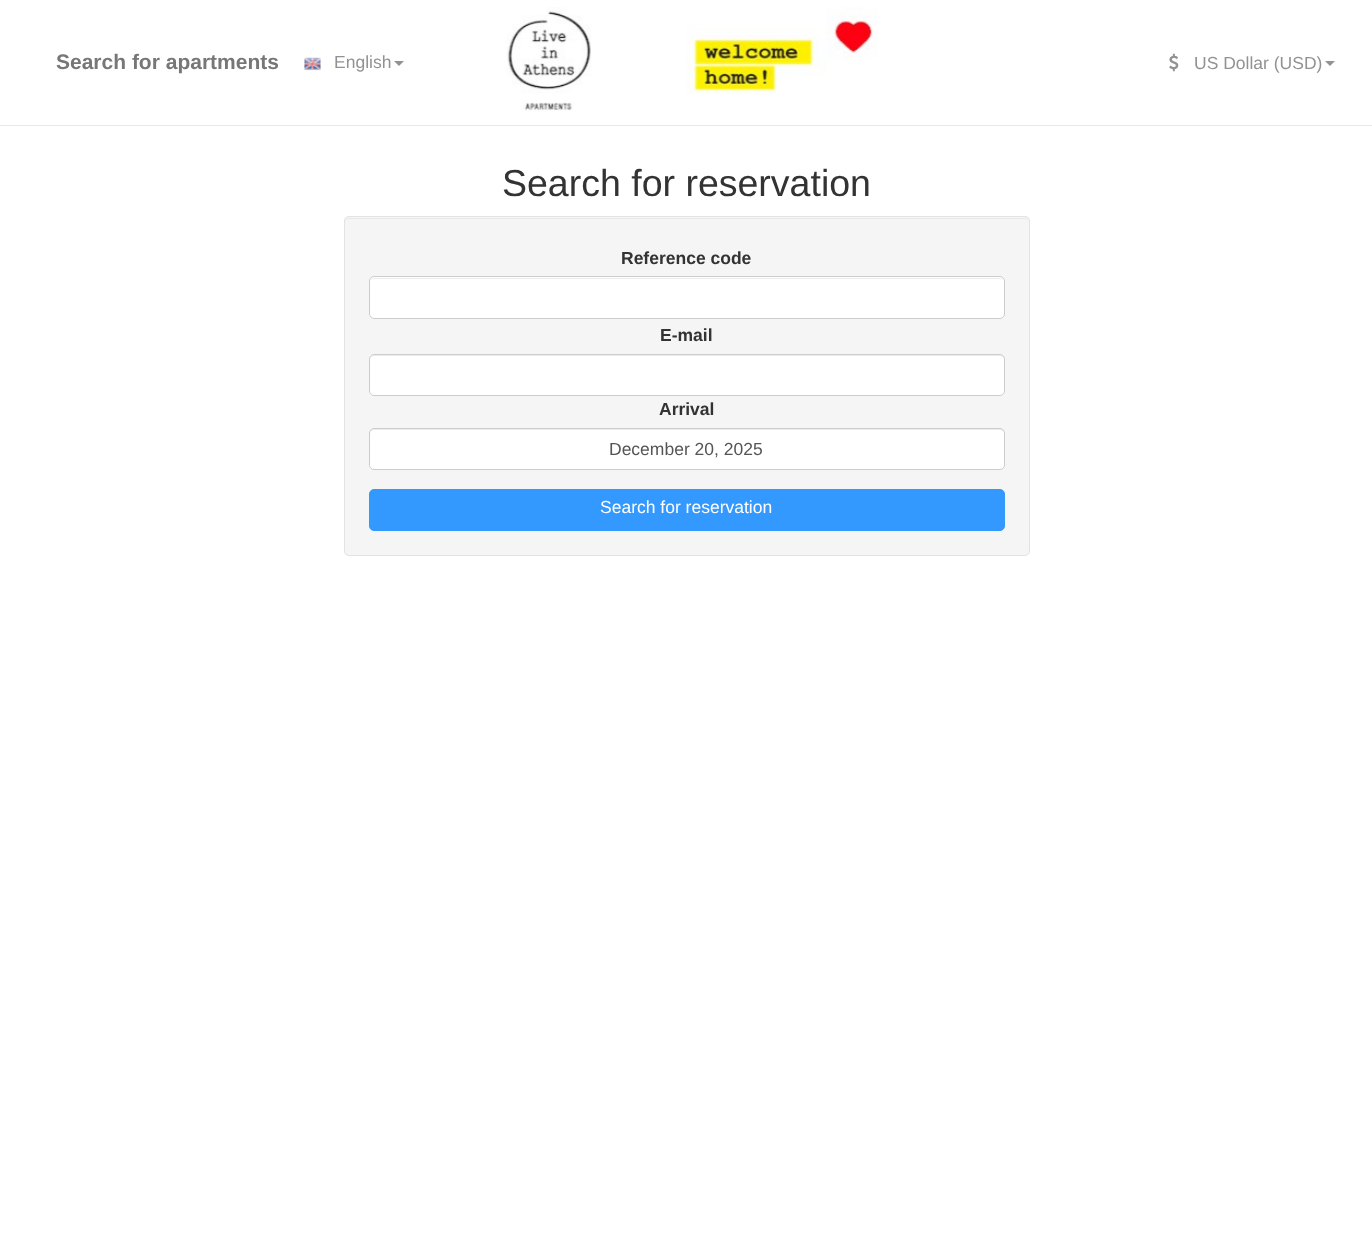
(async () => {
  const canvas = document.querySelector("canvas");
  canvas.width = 1372;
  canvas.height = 1248;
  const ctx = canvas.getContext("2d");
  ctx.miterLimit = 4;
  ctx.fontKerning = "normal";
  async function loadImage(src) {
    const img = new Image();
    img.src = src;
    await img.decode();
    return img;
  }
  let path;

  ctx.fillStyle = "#ffffff";
  ctx.fillRect(0, 0, 1372, 1248);
  ctx.fillStyle = "#e7e7e7";
  ctx.fillRect(0, 125, 1372, 1);
  ctx.drawImage(await loadImage("img/1.png"), 304, 57, 17, 14);
  ctx.fillStyle = "#929292";
  path = new Path2D("M394 61H404L399 66Z");
  ctx.fill(path);
  ctx.drawImage(await loadImage("img/2.png"), 506, 7, 372, 104);
  ctx.drawImage(await loadImage("img/3.png"), 1169, 53, 10, 19);
  path = new Path2D("M1325 61H1335L1330 66Z");
  ctx.fill(path);
  ctx.fillStyle = "#f5f5f5";
  ctx.beginPath();
  ctx.roundRect(344, 216, 686, 340, 5);
  ctx.fill();
  ctx.fillStyle = "#e9e9e9";
  path = new Path2D("M349 219H1025C1027 219 1029 220 1029 222C1029 220 1027 218 1025 218H349C347 218 345 220 345 222C345 220 347 219 349 219Z");
  ctx.fill(path);
  ctx.beginPath();
  ctx.roundRect(344.5, 216.5, 685, 339, 4.5);
  ctx.strokeStyle = "#e3e3e3";
  ctx.stroke();
  ctx.fillStyle = "#ffffff";
  ctx.beginPath();
  ctx.roundRect(369, 276, 636, 43, 5);
  ctx.fill();
  ctx.fillStyle = "#ececec";
  path = new Path2D("M374 279H1000C1002 279 1004 280 1004 282C1004 280 1002 278 1000 278H374C372 278 370 280 370 282C370 280 372 279 374 279Z");
  ctx.fill(path);
  ctx.beginPath();
  ctx.roundRect(369.5, 276.5, 635, 42, 4.5);
  ctx.strokeStyle = "#cccccc";
  ctx.stroke();
  ctx.fillStyle = "#ffffff";
  ctx.beginPath();
  ctx.roundRect(369, 354, 636, 42, 5);
  ctx.fill();
  ctx.fillStyle = "#ececec";
  path = new Path2D("M374 356H1000C1002 356 1004 358 1004 360C1004 357 1003 355 1000 355H374C371 355 370 357 370 360C370 358 372 356 374 356Z");
  ctx.fill(path);
  ctx.beginPath();
  ctx.roundRect(369.5, 354.5, 635, 41, 4.5);
  ctx.stroke();
  ctx.fillStyle = "#ffffff";
  ctx.beginPath();
  ctx.roundRect(369, 428, 636, 42, 5);
  ctx.fill();
  ctx.fillStyle = "#ececec";
  path = new Path2D("M374 430H1000C1002 430 1004 432 1004 434C1004 431 1003 429 1000 429H374C371 429 370 431 370 434C370 432 372 430 374 430Z");
  ctx.fill(path);
  ctx.beginPath();
  ctx.roundRect(369.5, 428.5, 635, 41, 4.5);
  ctx.stroke();
  ctx.fillStyle = "#3399ff";
  ctx.beginPath();
  ctx.roundRect(369.5, 489.5, 635, 41, 4.5);
  ctx.fill();
  ctx.strokeStyle = "#3399ff";
  ctx.stroke();
  ctx.font = "bold 21px Liberation Sans";
  ctx.fillStyle = "#777777";
  ctx.fillText("Search for apartments", 56, 69);
  ctx.font = "17.5px Liberation Sans";
  ctx.fillStyle = "#929292";
  ctx.fillText("English", 334, 68);
  ctx.fillText("US Dollar (USD)", 1194, 69);
  ctx.font = "37.5px Liberation Sans";
  ctx.fillStyle = "#333333";
  ctx.fillText("Search for reservation", 502, 196);
  ctx.font = "bold 17.5px Liberation Sans";
  for (const [text, x, y] of [
    ["Reference code", 621, 264],
    ["E-mail", 660, 341],
    ["Arrival", 659, 415],
  ]) {
    ctx.fillText(text, x, y);
  }
  ctx.font = "17.5px Liberation Sans";
  ctx.fillStyle = "#555555";
  ctx.fillText("December 20, 2025", 609, 455);
  ctx.fillStyle = "#ffffff";
  ctx.fillText("Search for reservation", 600, 513);
})();
